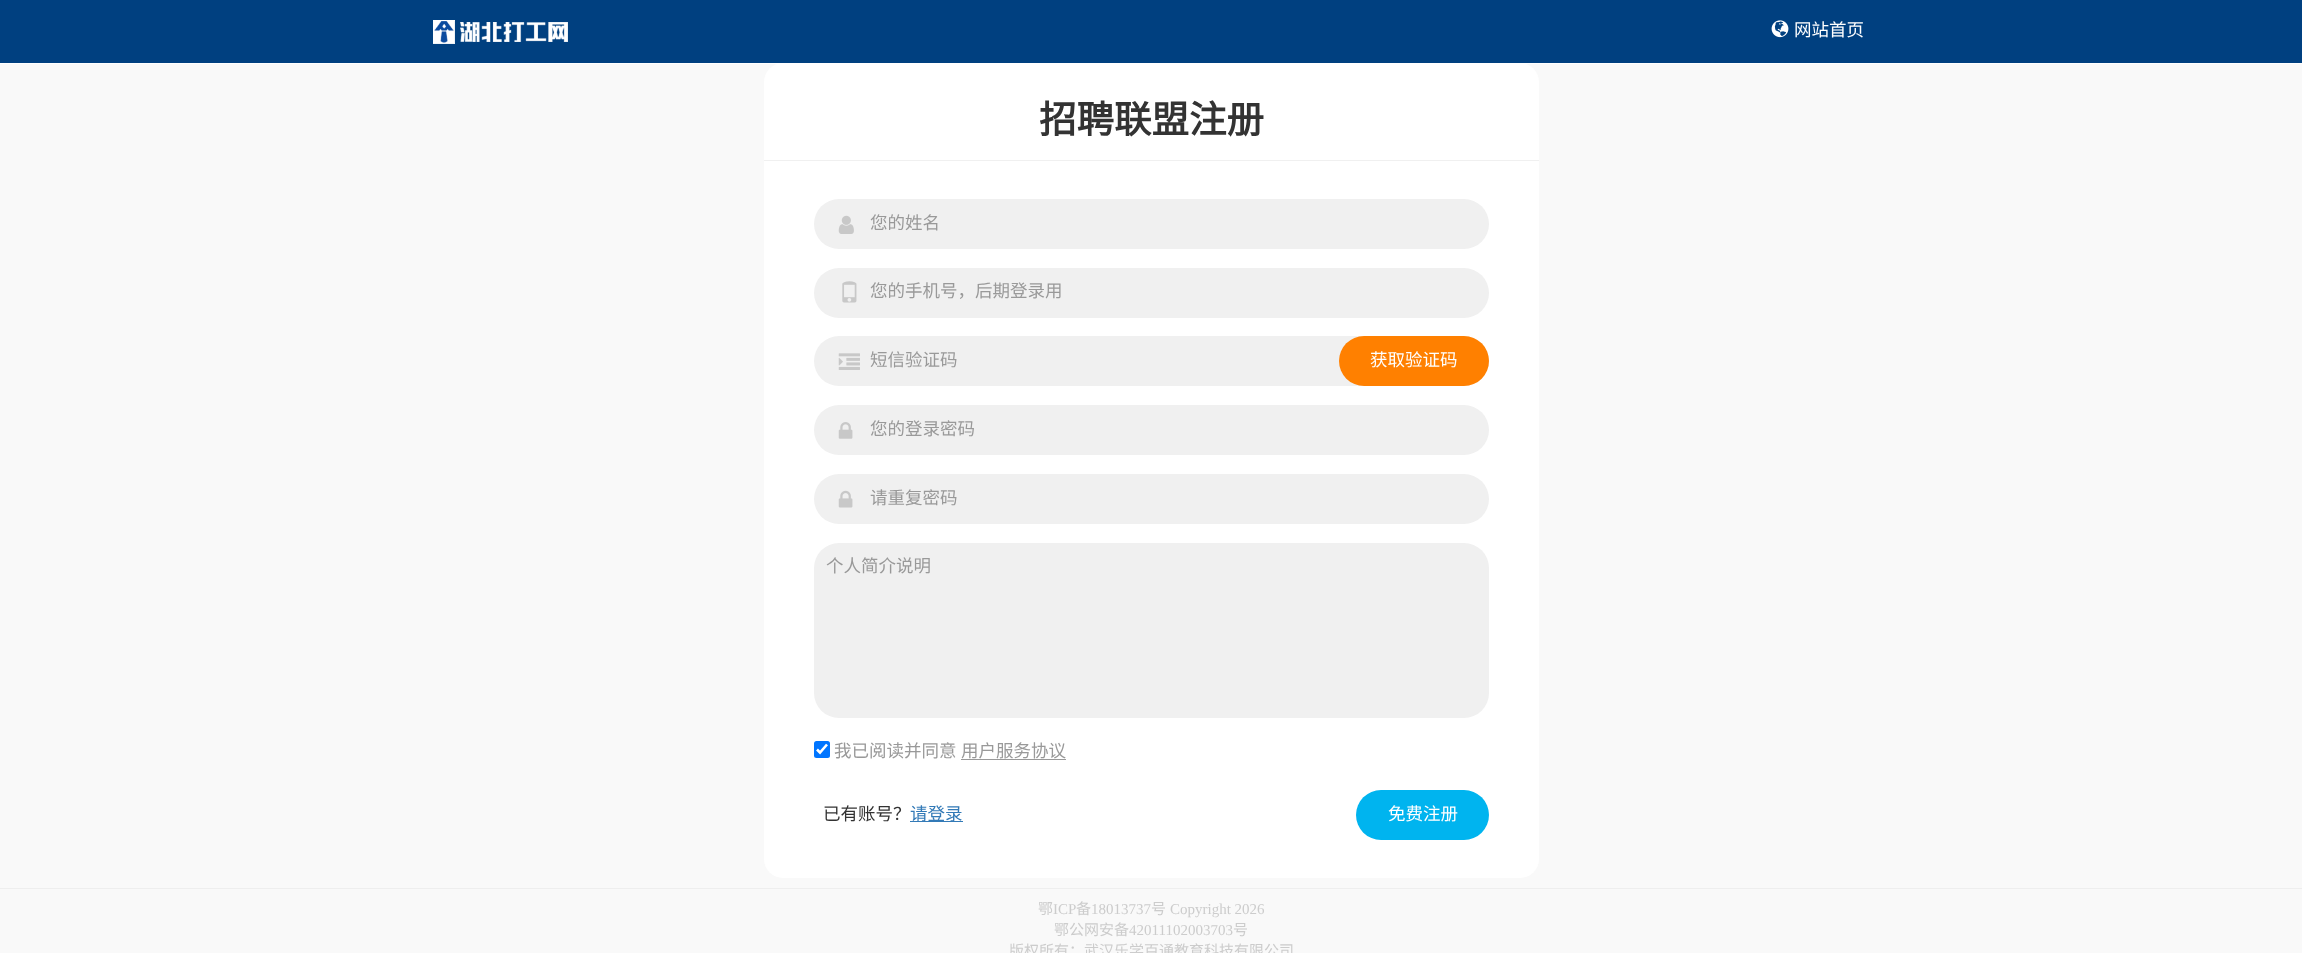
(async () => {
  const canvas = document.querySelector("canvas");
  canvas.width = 2302;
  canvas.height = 953;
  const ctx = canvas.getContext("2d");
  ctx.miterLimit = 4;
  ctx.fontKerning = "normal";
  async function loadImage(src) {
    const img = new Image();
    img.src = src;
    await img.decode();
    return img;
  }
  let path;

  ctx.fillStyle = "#f9f9f9";
  ctx.fillRect(0, 0, 2302, 953);
  ctx.fillStyle = "#004080";
  ctx.fillRect(0, 0, 2302, 63);
  ctx.fillStyle = "#ffffff";
  ctx.beginPath();
  ctx.roundRect(764, 63, 775, 815, 19);
  ctx.fill();
  ctx.fillRect(0, 63, 2302, 1);
  ctx.drawImage(await loadImage("img/1.png"), 433, 20, 135, 24);
  ctx.drawImage(await loadImage("img/2.png"), 1771, 20, 18, 18);
  ctx.fillStyle = "#f0f0f0";
  ctx.fillRect(764, 160, 775, 1);
  ctx.beginPath();
  ctx.roundRect(814, 199, 675, 50, 25);
  ctx.fill();
  ctx.drawImage(await loadImage("img/3.png"), 838, 215, 16, 19);
  ctx.beginPath();
  ctx.roundRect(814, 268, 675, 50, 25);
  ctx.fill();
  ctx.drawImage(await loadImage("img/4.png"), 842, 281, 15, 22);
  ctx.beginPath();
  ctx.roundRect(814, 336, 675, 50, 25);
  ctx.fill();
  ctx.drawImage(await loadImage("img/5.png"), 838, 353, 22, 17);
  ctx.fillStyle = "#ff8000";
  ctx.beginPath();
  ctx.roundRect(1339, 336, 150, 50, 25);
  ctx.fill();
  ctx.fillStyle = "#f0f0f0";
  ctx.beginPath();
  ctx.roundRect(814, 405, 675, 50, 25);
  ctx.fill();
  ctx.drawImage(await loadImage("img/6.png"), 838, 422, 15, 17);
  ctx.beginPath();
  ctx.roundRect(814, 474, 675, 50, 25);
  ctx.fill();
  ctx.drawImage(await loadImage("img/7.png"), 838, 490, 15, 18);
  ctx.beginPath();
  ctx.roundRect(814, 543, 675, 175, 25);
  ctx.fill();
  ctx.fillStyle = "#0075ff";
  ctx.beginPath();
  ctx.roundRect(814, 741, 16, 17, 2.5);
  ctx.fill();
  path = new Path2D("M817 749.5L820 752.5L827 744.5");
  ctx.strokeStyle = "#ffffff";
  ctx.lineWidth = 2.6;
  ctx.stroke(path);
  ctx.fillStyle = "#999999";
  ctx.fillRect(961, 759, 105, 1);
  ctx.fillStyle = "#337ab7";
  ctx.fillRect(910, 821, 53, 1);
  ctx.fillStyle = "#00b4ef";
  ctx.beginPath();
  ctx.roundRect(1356, 790, 133, 50, 25);
  ctx.fill();
  ctx.fillStyle = "#eeeeee";
  ctx.fillRect(0, 888, 2302, 1);
  ctx.font = "17.5px Noto Sans CJK SC";
  ctx.fillStyle = "#ffffff";
  ctx.fillText("网站首页", 1794, 36);
  ctx.font = "bold 37.5px Noto Sans CJK SC";
  ctx.fillStyle = "#333333";
  ctx.fillText("招聘联盟注册", 1039, 133);
  ctx.font = "17.5px Noto Sans CJK SC";
  ctx.fillStyle = "#999999";
  for (const [text, x, y] of [
    ["您的姓名", 870, 229],
    ["您的手机号，后期登录用", 870, 297],
    ["短信验证码", 870, 366],
  ]) {
    ctx.fillText(text, x, y);
  }
  ctx.fillStyle = "#ffffff";
  ctx.fillText("获取验证码", 1370, 366);
  ctx.fillStyle = "#999999";
  for (const [text, x, y] of [
    ["您的登录密码", 870, 435],
    ["请重复密码", 870, 504],
    ["个人简介说明", 826, 572],
    ["我已阅读并同意", 834, 757],
    ["用户服务协议", 961, 757],
  ]) {
    ctx.fillText(text, x, y);
  }
  ctx.fillStyle = "#333333";
  ctx.fillText("已有账号？", 823, 820);
  ctx.fillStyle = "#337ab7";
  ctx.fillText("请登录", 910, 820);
  ctx.fillStyle = "#ffffff";
  ctx.fillText("免费注册", 1388, 820);
  ctx.font = "15px Noto Sans CJK SC";
  ctx.fillStyle = "#cccccc";
  ctx.fillText("鄂", 1038, 914);
  ctx.font = "15px Liberation Serif";
  ctx.fillText("ICP", 1053, 914);
  ctx.font = "15px Noto Sans CJK SC";
  ctx.fillText("备", 1076, 914);
  ctx.font = "15px Liberation Serif";
  ctx.fillText("18013737", 1091, 914);
  ctx.font = "15px Noto Sans CJK SC";
  ctx.fillText("号", 1151, 914);
  ctx.font = "15px Liberation Serif";
  ctx.fillText("Copyright 2026", 1170, 914);
  ctx.font = "15px Noto Sans CJK SC";
  ctx.fillText("鄂公网安备", 1054, 935);
  ctx.font = "15px Liberation Serif";
  ctx.fillText("42011102003703", 1129, 935);
  ctx.font = "15px Noto Sans CJK SC";
  ctx.fillText("号", 1233, 935);
  ctx.fillText("版权所有：武汉乐学百通教育科技有限公司", 1009, 956);
})();
